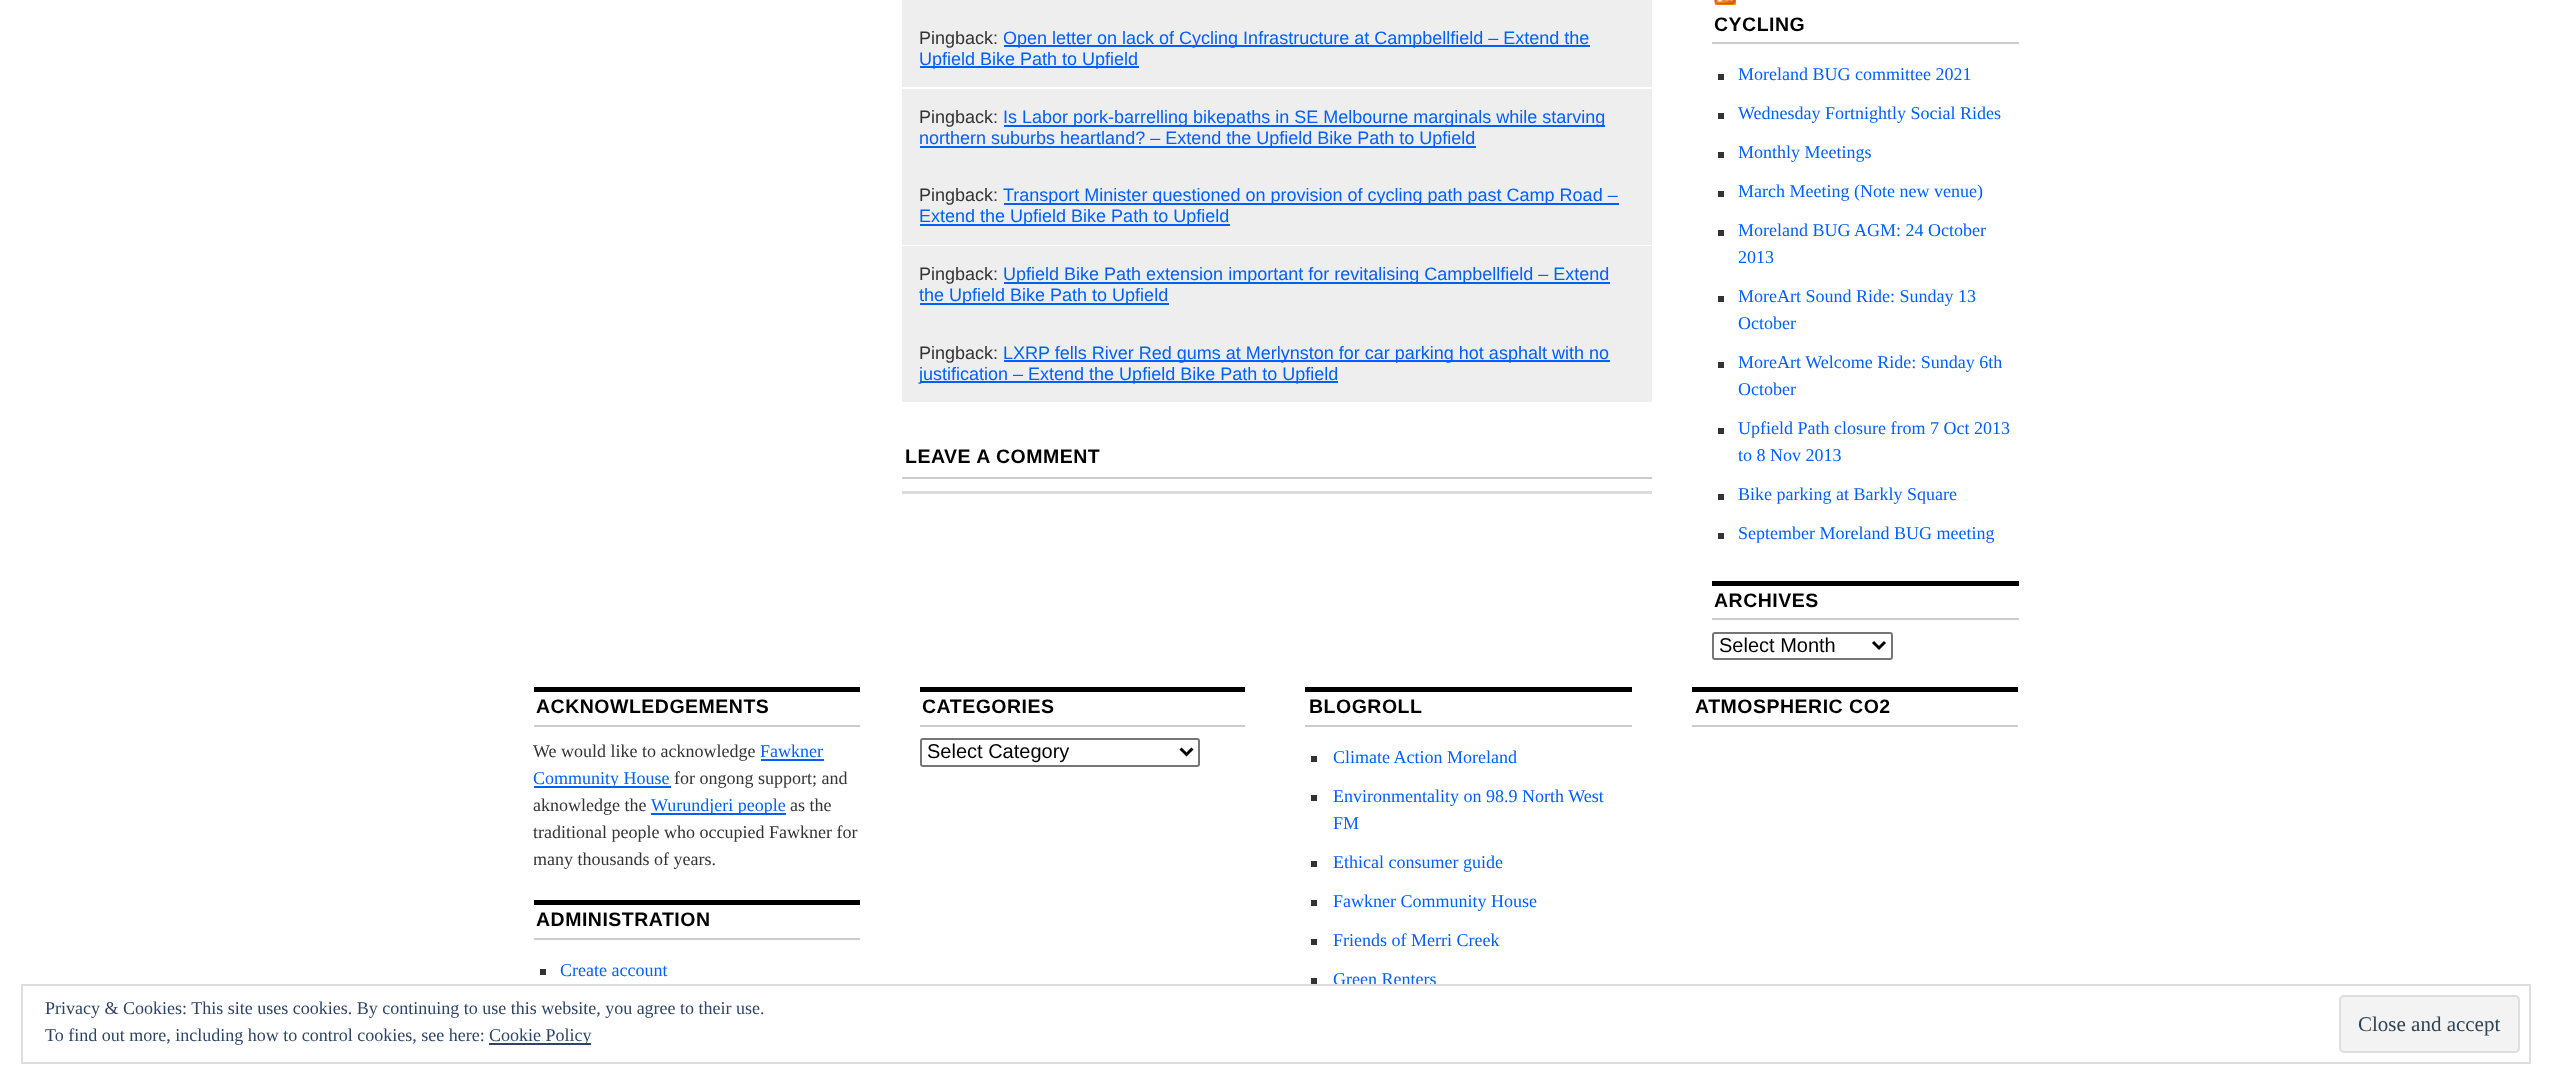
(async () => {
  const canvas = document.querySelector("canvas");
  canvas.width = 2551;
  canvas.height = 1084;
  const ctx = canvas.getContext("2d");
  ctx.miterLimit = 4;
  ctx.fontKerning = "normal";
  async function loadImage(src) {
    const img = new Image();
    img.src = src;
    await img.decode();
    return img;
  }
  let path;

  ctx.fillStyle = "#ffffff";
  ctx.fillRect(0, 0, 2551, 1084);
  for (const [x, y, w, h, color] of [
    [902, 0, 750, 87, "#eeeeee"],
    [1004, 45, 586, 2, "#0060ff"],
    [920, 66, 219, 2, "#0060ff"],
    [902, 89, 750, 156, "#eeeeee"],
    [1004, 125, 601, 2, "#0060ff"],
    [920, 146, 556, 2, "#0060ff"],
    [1004, 203, 615, 2, "#0060ff"],
    [920, 224, 310, 2, "#0060ff"],
    [902, 246, 750, 156, "#eeeeee"],
    [1004, 282, 606, 2, "#0060ff"],
    [920, 303, 249, 2, "#0060ff"],
    [1004, 360, 606, 2, "#0060ff"],
    [920, 381, 418, 2, "#0060ff"],
    [902, 477, 750, 2, "#cccccc"],
    [902, 491, 750, 3, "#dcdcde"],
    [1712, 42, 307, 2, "#cccccc"],
    [1715, 0, 21, 5, "#ffa500"],
  ]) {
    ctx.fillStyle = color;
    ctx.fillRect(x, y, w, h);
  }
  ctx.drawImage(await loadImage("img/1.png"), 1714, 0, 22, 5);
  for (const [x, y, w, h, color] of [
    [1718, 74, 6, 6, "#333333"],
    [1718, 113, 6, 6, "#333333"],
    [1718, 152, 6, 6, "#333333"],
    [1718, 191, 6, 6, "#333333"],
    [1718, 230, 6, 6, "#333333"],
    [1718, 296, 6, 6, "#333333"],
    [1718, 362, 6, 6, "#333333"],
    [1718, 428, 6, 6, "#333333"],
    [1718, 494, 6, 6, "#333333"],
    [1718, 533, 6, 6, "#333333"],
    [1712, 581, 307, 5, "#000000"],
    [1712, 618, 307, 2, "#cccccc"],
  ]) {
    ctx.fillStyle = color;
    ctx.fillRect(x, y, w, h);
  }
  ctx.beginPath();
  ctx.roundRect(1713, 633, 179, 26, 2);
  ctx.strokeStyle = "#767676";
  ctx.lineWidth = 2;
  ctx.stroke();
  path = new Path2D("M1873 642L1879 648L1885 642");
  ctx.strokeStyle = "#000000";
  ctx.lineWidth = 3;
  ctx.stroke(path);
  for (const [x, y, w, h, color] of [
    [534, 687, 326, 5, "#000000"],
    [534, 725, 326, 2, "#cccccc"],
    [761, 759, 63, 2, "#0060ff"],
    [534, 786, 137, 2, "#0060ff"],
    [651, 813, 135, 2, "#0060ff"],
    [534, 900, 326, 5, "#000000"],
    [534, 938, 326, 2, "#cccccc"],
    [540, 969, 6, 6, "#333333"],
    [920, 687, 325, 5, "#000000"],
    [920, 725, 325, 2, "#cccccc"],
  ]) {
    ctx.fillStyle = color;
    ctx.fillRect(x, y, w, h);
  }
  ctx.beginPath();
  ctx.roundRect(921, 739, 278, 27, 2);
  ctx.strokeStyle = "#767676";
  ctx.lineWidth = 2;
  ctx.stroke();
  path = new Path2D("M1180.5 748.5L1186.5 754.5L1192.5 748.5");
  ctx.strokeStyle = "#000000";
  ctx.lineWidth = 3;
  ctx.stroke(path);
  for (const [x, y, w, h, color] of [
    [1305, 687, 327, 5, "#000000"],
    [1305, 725, 327, 2, "#cccccc"],
    [1311, 756, 6, 6, "#333333"],
    [1311, 795, 6, 6, "#333333"],
    [1311, 861, 6, 6, "#333333"],
    [1311, 900, 6, 6, "#333333"],
    [1311, 939, 6, 6, "#333333"],
    [1311, 978, 6, 6, "#333333"],
    [1692, 687, 326, 5, "#000000"],
    [1692, 725, 326, 2, "#cccccc"],
  ]) {
    ctx.fillStyle = color;
    ctx.fillRect(x, y, w, h);
  }
  ctx.font = "18px Liberation Sans";
  ctx.fillStyle = "#333333";
  ctx.fillText("Pingback:", 919, 44);
  ctx.fillStyle = "#0060ff";
  ctx.fillText("Open letter on lack of Cycling Infrastructure at Campbellfield – Extend the", 1003, 44);
  ctx.fillText("Upfield Bike Path to Upfield", 919, 65);
  ctx.fillStyle = "#333333";
  ctx.fillText("Pingback:", 919, 123);
  ctx.fillStyle = "#0060ff";
  ctx.fillText("Is Labor pork-barrelling bikepaths in SE Melbourne marginals while starving", 1003, 123);
  ctx.fillText("northern suburbs heartland? – Extend the Upfield Bike Path to Upfield", 919, 144);
  ctx.fillStyle = "#333333";
  ctx.fillText("Pingback:", 919, 201);
  ctx.fillStyle = "#0060ff";
  ctx.fillText("Transport Minister questioned on provision of cycling path past Camp Road –", 1003, 201);
  ctx.fillText("Extend the Upfield Bike Path to Upfield", 919, 222);
  ctx.fillStyle = "#333333";
  ctx.fillText("Pingback:", 919, 280);
  ctx.fillStyle = "#0060ff";
  ctx.fillText("Upfield Bike Path extension important for revitalising Campbellfield – Extend", 1003, 280);
  ctx.fillText("the Upfield Bike Path to Upfield", 919, 301);
  ctx.fillStyle = "#333333";
  ctx.fillText("Pingback:", 919, 359);
  ctx.fillStyle = "#0060ff";
  ctx.fillText("LXRP fells River Red gums at Merlynston for car parking hot asphalt with no", 1003, 359);
  ctx.fillText("justification – Extend the Upfield Bike Path to Upfield", 919, 380);
  ctx.letterSpacing = "0.5px";
  ctx.font = "bold 19.5px Liberation Sans";
  ctx.fillStyle = "#000000";
  ctx.fillText("LEAVE A COMMENT", 905, 463);
  ctx.fillText("CYCLING", 1714, 31);
  ctx.letterSpacing = "0px";
  ctx.font = "18px Liberation Serif";
  ctx.fillStyle = "#0060ff";
  for (const [text, x, y] of [
    ["Moreland BUG committee 2021", 1738, 80],
    ["Wednesday Fortnightly Social Rides", 1738, 119],
    ["Monthly Meetings", 1738, 158],
    ["March Meeting (Note new venue)", 1738, 197],
    ["Moreland BUG AGM: 24 October", 1738, 236],
    ["2013", 1738, 263],
    ["MoreArt Sound Ride: Sunday 13", 1738, 302],
    ["October", 1738, 329],
    ["MoreArt Welcome Ride: Sunday 6th", 1738, 368],
    ["October", 1738, 395],
    ["Upfield Path closure from 7 Oct 2013", 1738, 434],
    ["to 8 Nov 2013", 1738, 461],
    ["Bike parking at Barkly Square", 1738, 500],
    ["September Moreland BUG meeting", 1738, 539],
  ]) {
    ctx.fillText(text, x, y);
  }
  ctx.letterSpacing = "0.5px";
  ctx.font = "bold 19.5px Liberation Sans";
  ctx.fillStyle = "#000000";
  ctx.fillText("ARCHIVES", 1714, 607);
  ctx.letterSpacing = "0px";
  ctx.font = "20px Liberation Sans";
  ctx.fillText("Select Month", 1719, 652);
  ctx.letterSpacing = "0.5px";
  ctx.font = "bold 19.5px Liberation Sans";
  ctx.fillText("ACKNOWLEDGEMENTS", 536, 713);
  ctx.letterSpacing = "0px";
  ctx.font = "18px Liberation Serif";
  ctx.fillStyle = "#333333";
  ctx.fillText("We would like to acknowledge", 533, 757);
  ctx.fillStyle = "#0060ff";
  ctx.fillText("Fawkner", 760, 757);
  ctx.fillText("Community House", 533, 784);
  ctx.fillStyle = "#333333";
  ctx.fillText("for ongong support; and", 674, 784);
  ctx.fillText("aknowledge the", 533, 811);
  ctx.fillStyle = "#0060ff";
  ctx.fillText("Wurundjeri people", 651, 811);
  ctx.fillStyle = "#333333";
  ctx.fillText("as the", 790, 811);
  ctx.fillText("traditional people who occupied Fawkner for", 533, 838);
  ctx.save();
  ctx.beginPath();
  ctx.rect(534, 687, 326, 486);
  ctx.clip();
  ctx.fillText("many thousands of years.", 533, 865);
  ctx.restore();
  ctx.letterSpacing = "0.5px";
  ctx.font = "bold 19.5px Liberation Sans";
  ctx.fillStyle = "#000000";
  ctx.fillText("ADMINISTRATION", 536, 926);
  ctx.letterSpacing = "0px";
  ctx.font = "18px Liberation Serif";
  ctx.fillStyle = "#0060ff";
  ctx.fillText("Create account", 560, 976);
  ctx.letterSpacing = "0.5px";
  ctx.font = "bold 19.5px Liberation Sans";
  ctx.fillStyle = "#000000";
  ctx.fillText("CATEGORIES", 922, 713);
  ctx.letterSpacing = "0px";
  ctx.font = "20px Liberation Sans";
  ctx.fillText("Select Category", 927, 758);
  ctx.letterSpacing = "0.5px";
  ctx.font = "bold 19.5px Liberation Sans";
  ctx.fillText("BLOGROLL", 1309, 713);
  ctx.letterSpacing = "0px";
  ctx.font = "18px Liberation Serif";
  ctx.fillStyle = "#0060ff";
  for (const [text, x, y] of [
    ["Climate Action Moreland", 1333, 763],
    ["Environmentality on 98.9 North West", 1333, 802],
    ["FM", 1333, 829],
    ["Ethical consumer guide", 1333, 868],
    ["Fawkner Community House", 1333, 907],
    ["Friends of Merri Creek", 1333, 946],
    ["Green Renters", 1333, 985],
  ]) {
    ctx.fillText(text, x, y);
  }
  ctx.letterSpacing = "0.5px";
  ctx.font = "bold 19.5px Liberation Sans";
  ctx.fillStyle = "#000000";
  ctx.fillText("ATMOSPHERIC CO2", 1695, 713);
  ctx.strokeStyle = "#dedede";
  ctx.lineWidth = 2;
  ctx.strokeRect(22, 985, 2508, 78);
  ctx.letterSpacing = "0px";
  ctx.font = "18px Liberation Serif";
  ctx.fillStyle = "#2e4467";
  ctx.fillText("Privacy & Cookies: This site uses cookies. By continuing to use this website, you agree to their use.", 45, 1014);
  ctx.fillText("To find out more, including how to control cookies, see here:", 45, 1041);
  ctx.fillRect(489, 1043, 102, 2);
  ctx.fillText("Cookie Policy", 489, 1041);
  ctx.fillStyle = "#f3f3f3";
  ctx.beginPath();
  ctx.roundRect(2340, 996, 179, 56, 4);
  ctx.fill();
  ctx.stroke();
  ctx.font = "21px Liberation Serif";
  ctx.fillStyle = "#2e4453";
  ctx.fillText("Close and accept", 2358, 1031);
})();
